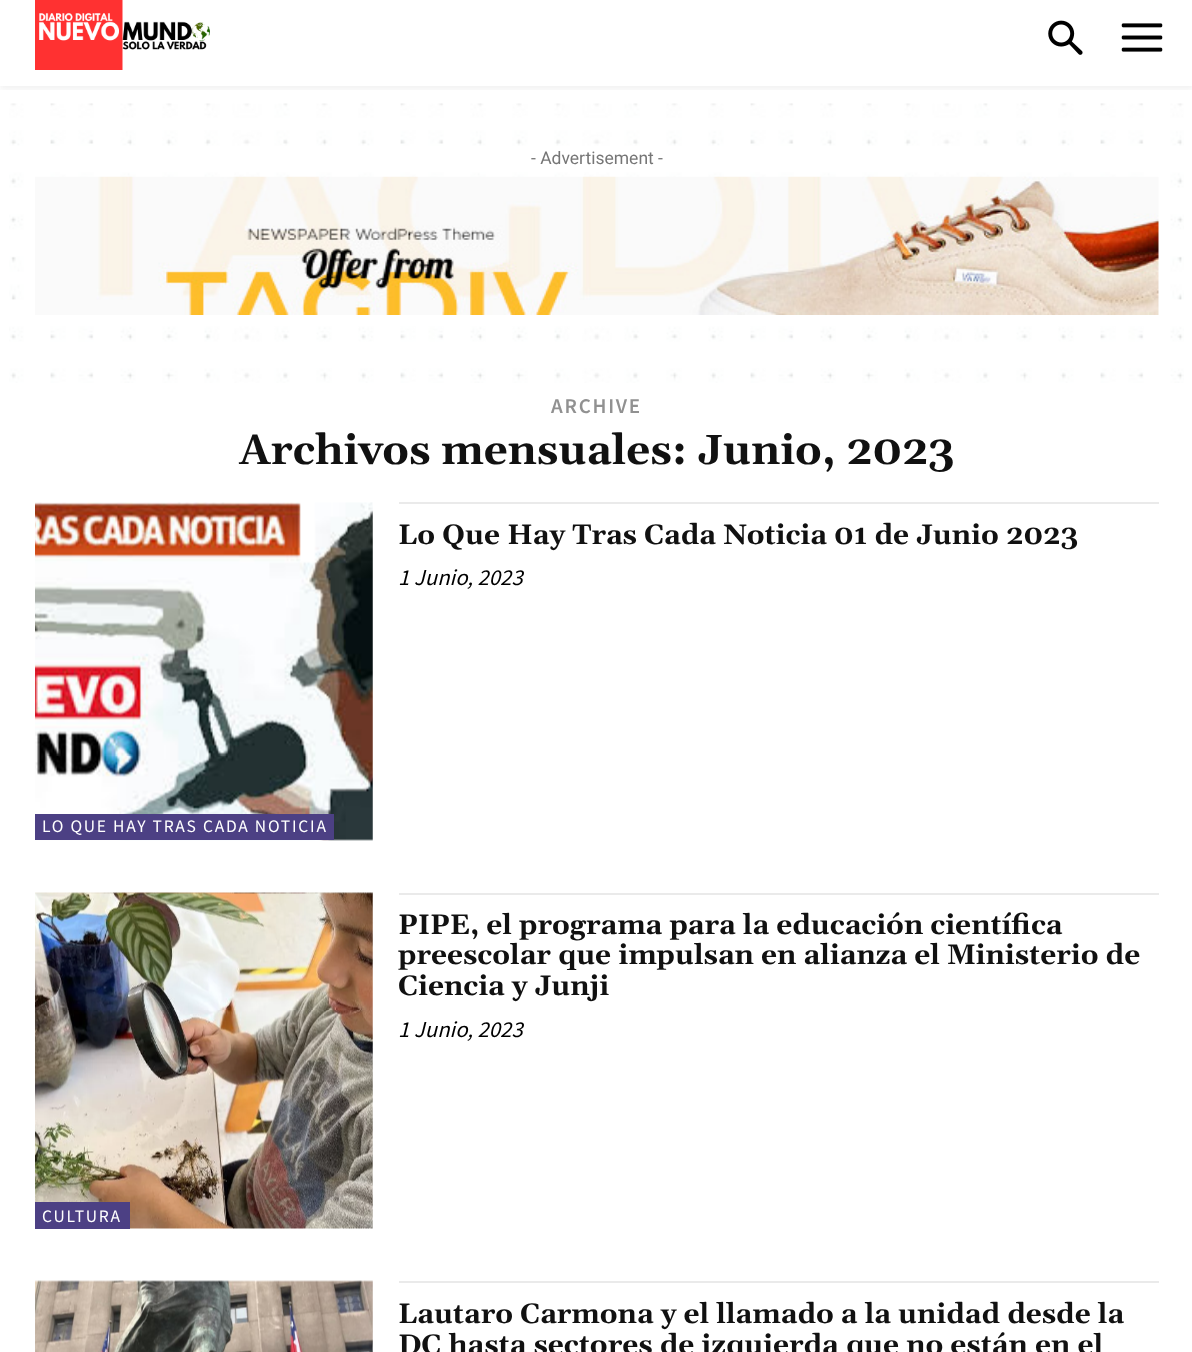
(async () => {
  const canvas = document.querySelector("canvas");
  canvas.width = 1192;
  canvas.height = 1352;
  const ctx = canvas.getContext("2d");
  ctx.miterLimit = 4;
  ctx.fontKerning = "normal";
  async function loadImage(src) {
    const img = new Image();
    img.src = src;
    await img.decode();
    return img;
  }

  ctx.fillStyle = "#ffffff";
  ctx.fillRect(0, 0, 1192, 1352);
  ctx.drawImage(await loadImage("img/1.png"), 35, 0, 175, 70);
  ctx.drawImage(await loadImage("img/2.png"), 1048, 20, 35, 35);
  ctx.drawImage(await loadImage("img/3.png"), 1121, 23, 42, 29);
  ctx.save();
  ctx.beginPath();
  ctx.rect(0, 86, 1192, 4);
  ctx.clip();
  ctx.fillStyle = "rgba(0, 0, 0, 0.06)";
  ctx.filter = "blur(3.5px)";
  ctx.beginPath();
  ctx.rect(0, 4, 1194, 85);
  ctx.fill();
  ctx.filter = "none";
  ctx.restore();
  ctx.drawImage(await loadImage("img/4.png"), 9, 103, 1175, 280);
  ctx.drawImage(await loadImage("img/5.png"), 35, 176, 1124, 139);
  ctx.fillStyle = "#eaeaea";
  ctx.fillRect(399, 502, 760, 2);
  ctx.drawImage(await loadImage("img/6.png"), 35, 502, 338, 339);
  ctx.fillStyle = "#4c4084";
  ctx.fillRect(35, 814, 299, 26);
  ctx.fillStyle = "#eaeaea";
  ctx.fillRect(399, 893, 760, 2);
  ctx.drawImage(await loadImage("img/7.png"), 35, 892, 338, 337);
  ctx.fillStyle = "#4c4084";
  ctx.fillRect(35, 1202, 95, 27);
  ctx.drawImage(await loadImage("img/8.png"), 35, 1280, 338, 72);
  ctx.fillStyle = "#eaeaea";
  ctx.fillRect(399, 1281, 760, 2);
  ctx.font = "17.5px Roboto";
  ctx.fillStyle = "#767676";
  ctx.fillText("- Advertisement -", 531, 164);
  ctx.letterSpacing = "1.75px";
  ctx.font = "600 21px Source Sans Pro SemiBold";
  ctx.fillStyle = "#919191";
  ctx.fillText("ARCHIVE", 551, 413);
  ctx.letterSpacing = "0px";
  ctx.font = "bold 42px Gelasio";
  ctx.fillStyle = "#111111";
  ctx.fillText("Archivos mensuales: Junio, 2023", 239, 464);
  ctx.font = "bold 28px Gelasio";
  ctx.fillText("Lo Que Hay Tras Cada Noticia 01 de Junio 2023", 398, 544);
  ctx.font = "italic 22.75px Source Sans Pro";
  ctx.fillStyle = "#000000";
  ctx.fillText("1 Junio, 2023", 398, 585);
  ctx.letterSpacing = "1.75px";
  ctx.font = "17.5px Source Sans Pro";
  ctx.fillStyle = "#ffffff";
  ctx.fillText("LO QUE HAY TRAS CADA NOTICIA", 42, 832);
  ctx.letterSpacing = "0px";
  ctx.font = "bold 28px Gelasio";
  ctx.fillStyle = "#111111";
  for (const [text, x, y] of [
    ["PIPE, el programa para la educación científica", 398, 934],
    ["preescolar que impulsan en alianza el Ministerio de", 398, 964],
    ["Ciencia y Junji", 398, 995],
  ]) {
    ctx.fillText(text, x, y);
  }
  ctx.font = "italic 22.75px Source Sans Pro";
  ctx.fillStyle = "#000000";
  ctx.fillText("1 Junio, 2023", 398, 1037);
  ctx.letterSpacing = "1.75px";
  ctx.font = "17.5px Source Sans Pro";
  ctx.fillStyle = "#ffffff";
  ctx.fillText("CULTURA", 42, 1222);
  ctx.letterSpacing = "0px";
  ctx.font = "bold 28px Gelasio";
  ctx.fillStyle = "#111111";
  ctx.fillText("Lautaro Carmona y el llamado a la unidad desde la", 398, 1323);
  ctx.fillText("DC hasta sectores de izquierda que no están en el", 398, 1354);
})();
